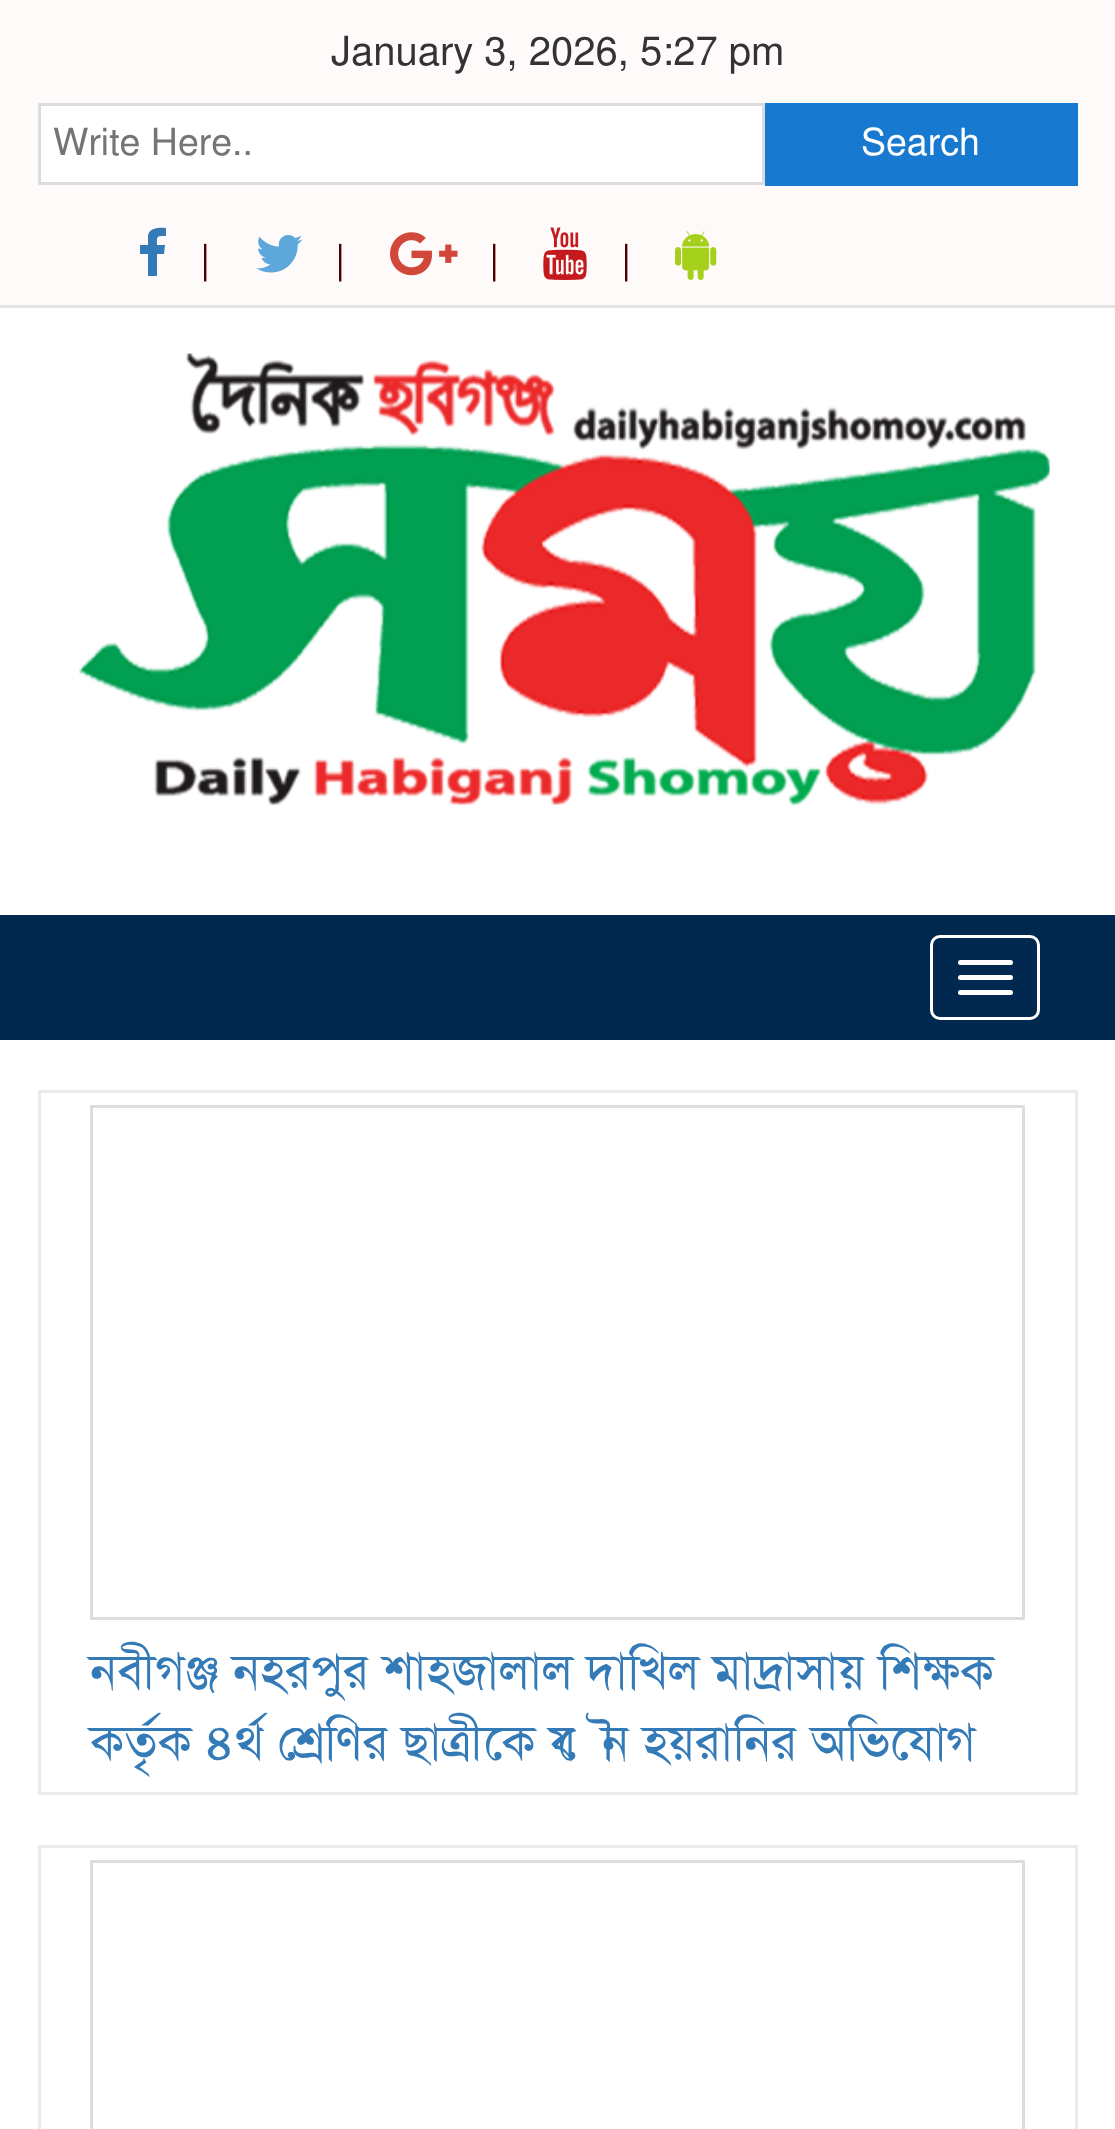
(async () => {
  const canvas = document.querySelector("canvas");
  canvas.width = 1115;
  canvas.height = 2129;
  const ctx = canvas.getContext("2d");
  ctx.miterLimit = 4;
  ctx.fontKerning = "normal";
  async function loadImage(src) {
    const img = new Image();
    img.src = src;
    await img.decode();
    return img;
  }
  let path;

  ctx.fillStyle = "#ffffff";
  ctx.fillRect(0, 0, 1115, 2129);
  ctx.fillStyle = "#fefafa";
  ctx.fillRect(0, 0, 1115, 305);
  ctx.fillStyle = "#e4e4e4";
  ctx.fillRect(0, 305, 1115, 3);
  ctx.fillStyle = "#ffffff";
  ctx.beginPath();
  ctx.rect(39.5, 104.5, 724, 79);
  ctx.fill();
  ctx.strokeStyle = "#dddddd";
  ctx.lineWidth = 3;
  ctx.stroke();
  ctx.fillStyle = "#1879d0";
  ctx.fillRect(765, 103, 313, 83);
  ctx.fillStyle = "#337ab7";
  path = new Path2D("M166 228V236C156 236 157 236 157 245H165L164 254H157V276H148V254H140V245H148V236C149 228 158 227 166 228Z");
  ctx.fill(path);
  ctx.drawImage(await loadImage("img/1.png"), 256, 235, 47, 38);
  ctx.drawImage(await loadImage("img/2.png"), 390, 232, 68, 44);
  ctx.drawImage(await loadImage("img/3.png"), 543, 227, 44, 53);
  ctx.drawImage(await loadImage("img/4.png"), 675, 231, 42, 49);
  ctx.drawImage(await loadImage("img/5.png"), 79, 353, 971, 452);
  ctx.fillStyle = "#01284f";
  ctx.fillRect(0, 915, 1115, 125);
  ctx.beginPath();
  ctx.roundRect(931.5, 936.5, 107, 82, 8.5);
  ctx.strokeStyle = "#ffffff";
  ctx.stroke();
  ctx.fillStyle = "#ffffff";
  ctx.beginPath();
  ctx.roundRect(958, 960, 55, 5, 2.5);
  ctx.fill();
  ctx.beginPath();
  ctx.roundRect(958, 975, 55, 5, 2.5);
  ctx.fill();
  ctx.beginPath();
  ctx.roundRect(958, 990, 55, 5, 2.5);
  ctx.fill();
  ctx.strokeStyle = "#eaeaea";
  ctx.strokeRect(39.5, 1091.5, 1037, 702);
  ctx.strokeStyle = "#dddddd";
  ctx.strokeRect(91.5, 1106.5, 932, 512);
  ctx.strokeStyle = "#eaeaea";
  ctx.strokeRect(39.5, 1846.5, 1037, 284);
  ctx.strokeStyle = "#dddddd";
  ctx.strokeRect(91.5, 1861.5, 932, 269);
  ctx.font = "40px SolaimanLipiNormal";
  ctx.fillStyle = "#333333";
  ctx.fillText("January 3, 2026, 5:27 pm", 331, 65);
  ctx.font = "37.5px SolaimanLipiNormal";
  ctx.fillStyle = "#757575";
  ctx.fillText("Write Here..", 53, 155);
  ctx.fillStyle = "#ffffff";
  ctx.fillText("Search", 861, 155);
  ctx.font = "40px SolaimanLipiNormal";
  ctx.fillStyle = "#4d0202";
  for (const [text, x, y] of [
    ["|", 200, 273],
    ["|", 335, 273],
    ["|", 489, 273],
    ["|", 621, 273],
  ]) {
    ctx.fillText(text, x, y);
  }
  ctx.font = "50px SolaimanLipiNormal";
  ctx.fillStyle = "#337ab7";
  ctx.fillText("নবীগঞ্জ নহরপুর শাহ্জালাল দাখিল মাদ্রাসায় শিক্ষক", 90, 1688);
  ctx.fillText("কর্তৃক ৪র্থ শ্রেণির ছাত্রীকে যৌন হয়রানির অভিযোগ", 90, 1759);
})();
